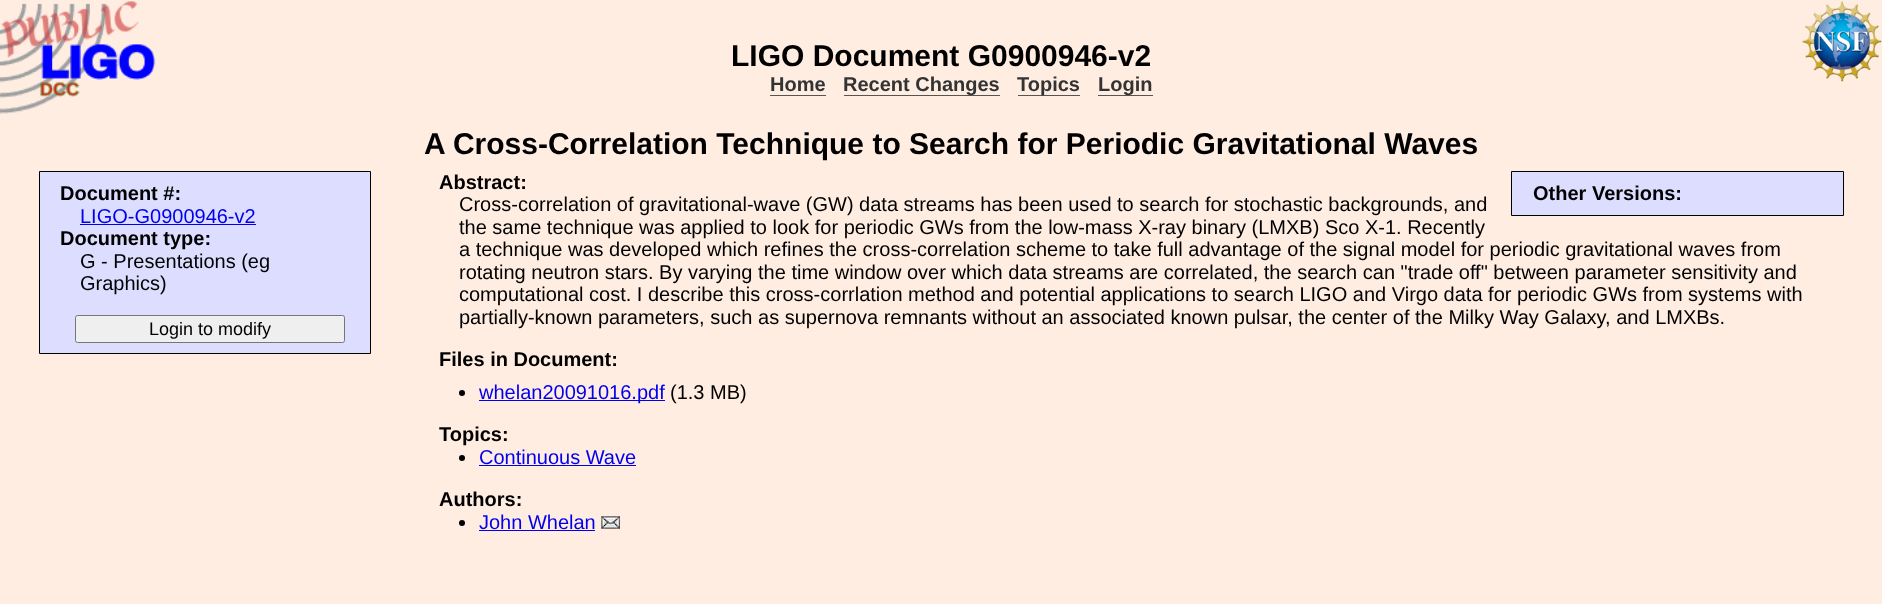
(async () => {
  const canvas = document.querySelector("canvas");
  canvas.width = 1882;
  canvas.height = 604;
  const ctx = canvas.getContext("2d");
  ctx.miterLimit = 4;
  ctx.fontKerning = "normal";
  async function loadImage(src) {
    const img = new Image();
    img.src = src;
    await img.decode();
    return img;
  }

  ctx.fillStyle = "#ffede2";
  ctx.fillRect(0, 0, 1882, 604);
  ctx.drawImage(await loadImage("img/1.png"), 0, 1, 1882, 113);
  for (const [x, y, w, h, color] of [
    [770, 95, 56, 1, "#555555"],
    [844, 95, 156, 1, "#555555"],
    [1018, 95, 62, 1, "#555555"],
    [1098, 95, 55, 1, "#555555"],
  ]) {
    ctx.fillStyle = color;
    ctx.fillRect(x, y, w, h);
  }
  ctx.fillStyle = "#ddddff";
  ctx.beginPath();
  ctx.rect(39.5, 171.5, 331, 182);
  ctx.fill();
  ctx.strokeStyle = "#000000";
  ctx.stroke();
  ctx.fillStyle = "#0000ee";
  ctx.fillRect(80, 224, 176, 1);
  ctx.fillStyle = "#efefef";
  ctx.beginPath();
  ctx.roundRect(75.5, 315.5, 269, 27, 2);
  ctx.fill();
  ctx.strokeStyle = "#767676";
  ctx.stroke();
  ctx.fillStyle = "#ddddff";
  ctx.beginPath();
  ctx.rect(1511.5, 171.5, 332, 44);
  ctx.fill();
  ctx.strokeStyle = "#000000";
  ctx.stroke();
  ctx.fillStyle = "#000000";
  ctx.beginPath();
  ctx.arc(462, 393, 3, 0, Math.PI * 2);
  ctx.fill();
  ctx.fillStyle = "#0000ee";
  ctx.fillRect(479, 400, 186, 1);
  ctx.fillStyle = "#000000";
  ctx.beginPath();
  ctx.arc(462, 458, 3, 0, Math.PI * 2);
  ctx.fill();
  ctx.fillStyle = "#0000ee";
  ctx.fillRect(479, 465, 157, 1);
  ctx.fillStyle = "#000000";
  ctx.beginPath();
  ctx.arc(462, 523, 3, 0, Math.PI * 2);
  ctx.fill();
  ctx.fillStyle = "#0000ee";
  ctx.fillRect(479, 530, 116, 1);
  ctx.drawImage(await loadImage("img/2.png"), 601, 516, 19, 13);
  ctx.font = "bold 30px Liberation Sans";
  ctx.fillStyle = "#000000";
  ctx.fillText("LIGO Document G0900946-v2", 731, 66);
  ctx.font = "bold 20px Liberation Sans";
  ctx.fillStyle = "#333333";
  for (const [text, x, y] of [
    ["Home", 770, 91],
    ["Recent Changes", 843, 91],
    ["Topics", 1017, 91],
    ["Login", 1098, 91],
  ]) {
    ctx.fillText(text, x, y);
  }
  ctx.font = "bold 30px Liberation Sans";
  ctx.fillStyle = "#000000";
  ctx.fillText("A Cross-Correlation Technique to Search for Periodic Gravitational Waves", 424, 154);
  ctx.font = "bold 20px Liberation Sans";
  ctx.fillText("Document #:", 60, 200);
  ctx.font = "20px Liberation Sans";
  ctx.fillStyle = "#0000ee";
  ctx.fillText("LIGO-G0900946-v2", 80, 223);
  ctx.font = "bold 20px Liberation Sans";
  ctx.fillStyle = "#000000";
  ctx.fillText("Document type:", 60, 245);
  ctx.font = "20px Liberation Sans";
  ctx.fillText("G - Presentations (eg", 80, 268);
  ctx.fillText("Graphics)", 80, 290);
  ctx.font = "18px Liberation Sans";
  ctx.fillText("Login to modify", 149, 335);
  ctx.font = "bold 20px Liberation Sans";
  ctx.fillText("Abstract:", 439, 189);
  ctx.font = "20px Liberation Sans";
  for (const [text, x, y] of [
    ["Cross-correlation of gravitational-wave (GW) data streams has been used to search for stochastic backgrounds, and", 459, 211],
    ["the same technique was applied to look for periodic GWs from the low-mass X-ray binary (LMXB) Sco X-1. Recently", 459, 234],
    ["a technique was developed which refines the cross-correlation scheme to take full advantage of the signal model for periodic gravitational waves from", 459, 256],
    ["rotating neutron stars. By varying the time window over which data streams are correlated, the search can \"trade off\" between parameter sensitivity and", 459, 279],
    ["computational cost. I describe this cross-corrlation method and potential applications to search LIGO and Virgo data for periodic GWs from systems with", 459, 301],
    ["partially-known parameters, such as supernova remnants without an associated known pulsar, the center of the Milky Way Galaxy, and LMXBs.", 459, 324],
  ]) {
    ctx.fillText(text, x, y);
  }
  ctx.font = "bold 20px Liberation Sans";
  ctx.fillText("Other Versions:", 1533, 200);
  ctx.fillText("Files in Document:", 439, 366);
  ctx.font = "20px Liberation Sans";
  ctx.fillStyle = "#0000ee";
  ctx.fillText("whelan20091016.pdf", 479, 399);
  ctx.fillStyle = "#000000";
  ctx.fillText("(1.3 MB)", 670, 399);
  ctx.font = "bold 20px Liberation Sans";
  ctx.fillText("Topics:", 439, 441);
  ctx.font = "20px Liberation Sans";
  ctx.fillStyle = "#0000ee";
  ctx.fillText("Continuous Wave", 479, 464);
  ctx.font = "bold 20px Liberation Sans";
  ctx.fillStyle = "#000000";
  ctx.fillText("Authors:", 439, 506);
  ctx.font = "20px Liberation Sans";
  ctx.fillStyle = "#0000ee";
  ctx.fillText("John Whelan", 479, 529);
})();
